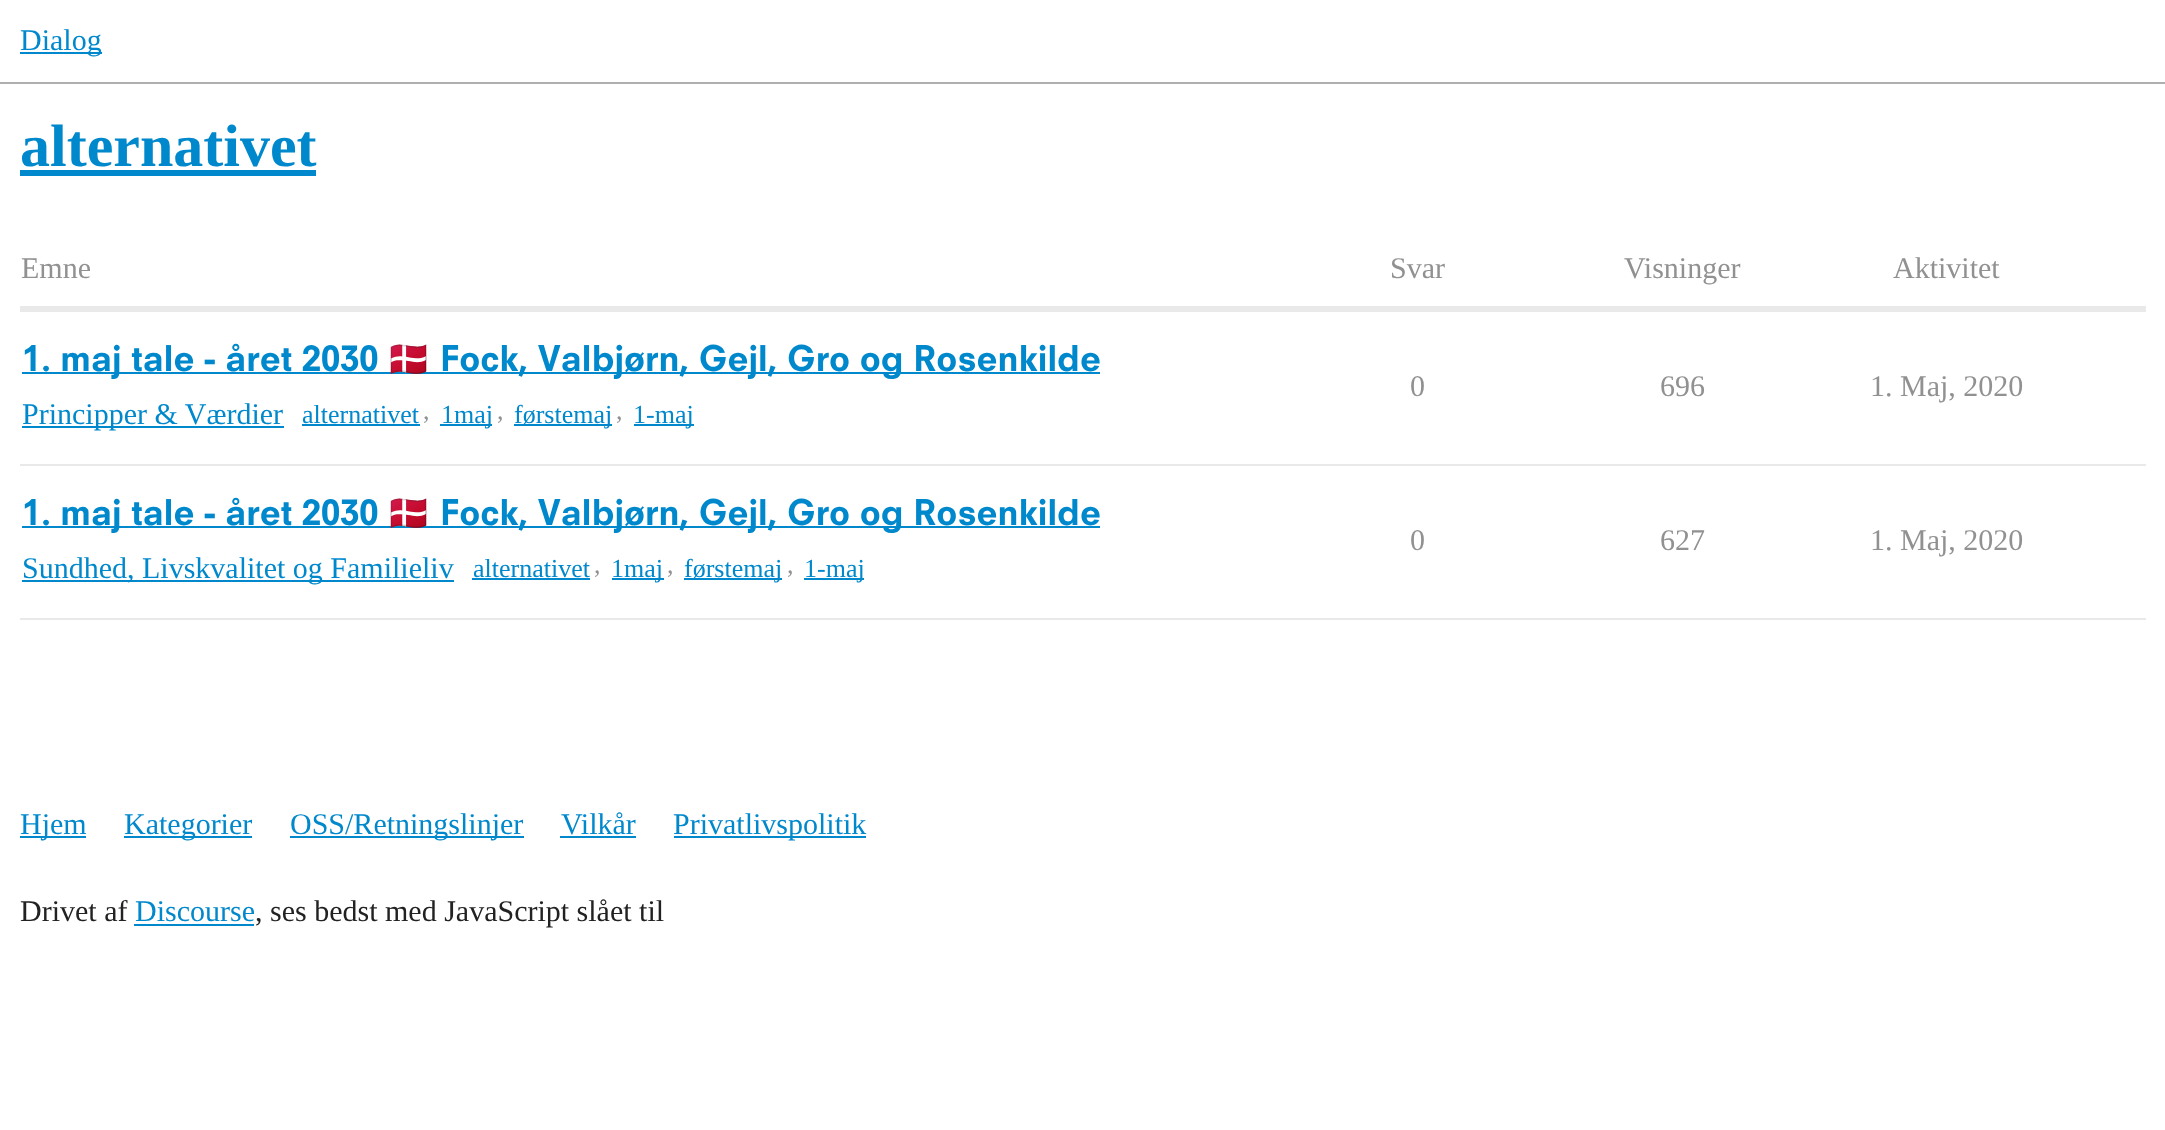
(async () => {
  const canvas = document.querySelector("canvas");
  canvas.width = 2165;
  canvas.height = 1130;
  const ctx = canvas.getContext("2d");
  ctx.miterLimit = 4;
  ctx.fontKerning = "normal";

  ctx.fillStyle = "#ffffff";
  ctx.fillRect(0, 0, 2165, 1130);
  for (const [x, y, w, h, color] of [
    [0, 82, 2165, 2, "#afafaf"],
    [20, 52, 82, 2, "#0088cc"],
    [20, 170, 296, 6, "#0088cc"],
    [20, 306, 2126, 6, "#e9e9e9"],
    [20, 464, 2126, 2, "#e9e9e9"],
    [22, 372, 1078, 2, "#0088cc"],
    [22, 426, 262, 2, "#0088cc"],
    [302, 424, 118, 2, "#0088cc"],
    [440, 424, 52, 2, "#0088cc"],
    [514, 424, 98, 2, "#0088cc"],
    [634, 424, 60, 2, "#0088cc"],
    [20, 618, 2126, 2, "#e9e9e9"],
    [22, 526, 1078, 2, "#0088cc"],
    [22, 580, 432, 2, "#0088cc"],
    [472, 578, 118, 2, "#0088cc"],
    [612, 578, 52, 2, "#0088cc"],
    [684, 578, 98, 2, "#0088cc"],
    [804, 578, 60, 2, "#0088cc"],
    [20, 836, 66, 2, "#0088cc"],
    [124, 836, 128, 2, "#0088cc"],
    [290, 836, 234, 2, "#0088cc"],
    [560, 836, 76, 2, "#0088cc"],
    [674, 836, 192, 2, "#0088cc"],
    [134, 924, 120, 2, "#0088cc"],
  ]) {
    ctx.fillStyle = color;
    ctx.fillRect(x, y, w, h);
  }
  ctx.font = "30px Liberation Serif";
  ctx.fillText("Dialog", 20, 50);
  ctx.font = "bold 60px Liberation Serif";
  ctx.fillText("alternativet", 20, 166);
  ctx.font = "30px Liberation Serif";
  ctx.fillStyle = "#919191";
  for (const [text, x, y] of [
    ["Emne", 21, 278],
    ["Svar", 1390, 278],
    ["Visninger", 1624, 278],
    ["Aktivitet", 1893, 278],
  ]) {
    ctx.fillText(text, x, y);
  }
  ctx.font = "900 34.5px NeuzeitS";
  ctx.fillStyle = "#0088cc";
  ctx.fillText("1. maj tale - året 2030", 22, 371);
  ctx.font = "34.5px Noto Color Emoji";
  ctx.fillText("🇩🇰", 387, 371);
  ctx.font = "900 34.5px NeuzeitS";
  ctx.fillText("Fock, Valbjørn, Gejl, Gro og Rosenkilde", 440, 371);
  ctx.font = "30px Liberation Serif";
  ctx.fillText("Principper & Værdier", 22, 424);
  ctx.font = "26px Liberation Serif";
  ctx.fillText("alternativet", 302, 423);
  ctx.fillStyle = "#919191";
  ctx.fillText(",", 423, 419);
  ctx.fillStyle = "#0088cc";
  ctx.fillText("1maj", 441, 423);
  ctx.fillStyle = "#919191";
  ctx.fillText(",", 497, 419);
  ctx.fillStyle = "#0088cc";
  ctx.fillText("førstemaj", 514, 423);
  ctx.fillStyle = "#919191";
  ctx.fillText(",", 616, 419);
  ctx.fillStyle = "#0088cc";
  ctx.fillText("1-maj", 633, 423);
  ctx.font = "30px Liberation Serif";
  ctx.fillStyle = "#919191";
  for (const [text, x, y] of [
    ["0", 1410, 396],
    ["696", 1660, 396],
    ["1. Maj, 2020", 1870, 396],
  ]) {
    ctx.fillText(text, x, y);
  }
  ctx.font = "900 34.5px NeuzeitS";
  ctx.fillStyle = "#0088cc";
  ctx.fillText("1. maj tale - året 2030", 22, 525);
  ctx.font = "34.5px Noto Color Emoji";
  ctx.fillText("🇩🇰", 387, 525);
  ctx.font = "900 34.5px NeuzeitS";
  ctx.fillText("Fock, Valbjørn, Gejl, Gro og Rosenkilde", 440, 525);
  ctx.font = "30px Liberation Serif";
  ctx.fillText("Sundhed, Livskvalitet og Familieliv", 22, 578);
  ctx.font = "26px Liberation Serif";
  ctx.fillText("alternativet", 473, 577);
  ctx.fillStyle = "#919191";
  ctx.fillText(",", 594, 573);
  ctx.fillStyle = "#0088cc";
  ctx.fillText("1maj", 611, 577);
  ctx.fillStyle = "#919191";
  ctx.fillText(",", 667, 573);
  ctx.fillStyle = "#0088cc";
  ctx.fillText("førstemaj", 684, 577);
  ctx.fillStyle = "#919191";
  ctx.fillText(",", 787, 573);
  ctx.fillStyle = "#0088cc";
  ctx.fillText("1-maj", 804, 577);
  ctx.font = "30px Liberation Serif";
  ctx.fillStyle = "#919191";
  for (const [text, x, y] of [
    ["0", 1410, 550],
    ["627", 1660, 550],
    ["1. Maj, 2020", 1870, 550],
  ]) {
    ctx.fillText(text, x, y);
  }
  ctx.fillStyle = "#0088cc";
  for (const [text, x, y] of [
    ["Hjem", 20, 834],
    ["Kategorier", 124, 834],
    ["OSS/Retningslinjer", 290, 834],
    ["Vilkår", 561, 834],
    ["Privatlivspolitik", 673, 834],
  ]) {
    ctx.fillText(text, x, y);
  }
  ctx.fillStyle = "#222222";
  ctx.fillText("Drivet af", 20, 921);
  ctx.fillStyle = "#0088cc";
  ctx.fillText("Discourse", 135, 921);
  ctx.fillStyle = "#222222";
  ctx.fillText(", ses bedst med JavaScript slået til", 255, 921);
})();
